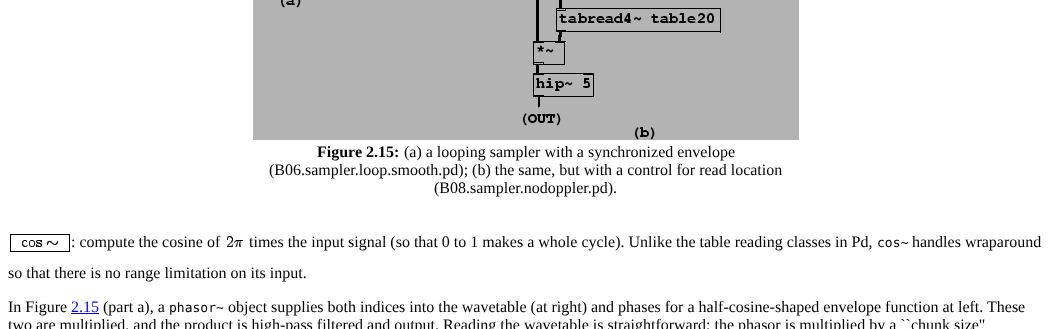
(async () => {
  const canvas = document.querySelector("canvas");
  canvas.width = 1052;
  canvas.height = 329;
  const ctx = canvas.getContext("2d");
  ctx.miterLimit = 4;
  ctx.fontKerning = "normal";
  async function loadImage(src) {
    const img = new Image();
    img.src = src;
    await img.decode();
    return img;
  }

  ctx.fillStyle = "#ffffff";
  ctx.fillRect(0, 0, 1052, 329);
  ctx.drawImage(await loadImage("img/1.png"), 253, 0, 546, 140);
  ctx.drawImage(await loadImage("img/2.png"), 10, 234, 60, 18);
  ctx.drawImage(await loadImage("img/3.png"), 227, 236, 16, 11);
  ctx.fillStyle = "#0000ee";
  ctx.fillRect(71, 313, 28, 1);
  ctx.font = "bold 16px Liberation Serif";
  ctx.fillStyle = "#000000";
  ctx.fillText("Figure 2.15:", 317, 157);
  ctx.font = "16px Liberation Serif";
  for (const [text, x, y] of [
    ["(a) a looping sampler with a synchronized envelope", 404, 157],
    ["(B06.sampler.loop.smooth.pd); (b) the same, but with a control for read location", 269, 175],
    ["(B08.sampler.nodoppler.pd).", 434, 193],
    [": compute the cosine of", 71, 247],
    ["times the input signal (so that 0 to 1 makes a whole cycle). Unlike the table reading classes in Pd,", 249, 247],
  ]) {
    ctx.fillText(text, x, y);
  }
  ctx.font = "13px DejaVu Sans Mono";
  ctx.fillText("cos~", 877, 247);
  ctx.font = "16px Liberation Serif";
  for (const [text, x, y] of [
    ["handles wraparound", 912, 247],
    ["so that there is no range limitation on its input.", 8, 278],
    ["In Figure", 8, 312],
  ]) {
    ctx.fillText(text, x, y);
  }
  ctx.fillStyle = "#0000ee";
  ctx.fillText("2.15", 71, 312);
  ctx.fillStyle = "#000000";
  ctx.fillText("(part a), a", 103, 312);
  ctx.font = "13px DejaVu Sans Mono";
  ctx.fillText("phasor~", 169, 312);
  ctx.font = "16px Liberation Serif";
  ctx.fillText("object supplies both indices into the wavetable (at right) and phases for a half-cosine-shaped envelope function at left. These", 228, 312);
  ctx.fillText("two are multiplied, and the product is high-pass filtered and output. Reading the wavetable is straightforward; the phasor is multiplied by a ``chunk size\"", 8, 330);
})();
